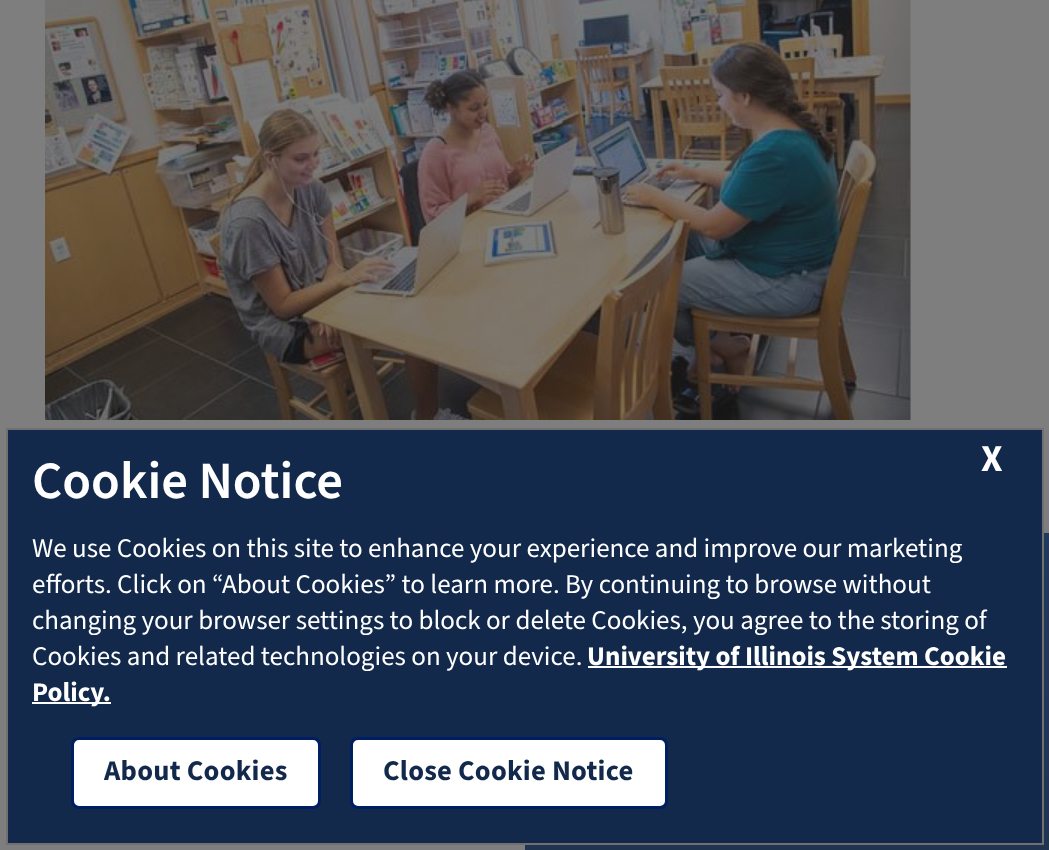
(async () => {
  const canvas = document.querySelector("canvas");
  canvas.width = 1049;
  canvas.height = 850;
  const ctx = canvas.getContext("2d");
  ctx.miterLimit = 4;
  ctx.fontKerning = "normal";
  async function loadImage(src) {
    const img = new Image();
    img.src = src;
    await img.decode();
    return img;
  }
  let gradient;

  ctx.fillStyle = "#7e7e7e";
  ctx.fillRect(0, 0, 1049, 850);
  ctx.drawImage(await loadImage("img/1.png"), 45, 0, 866, 420);
  gradient = ctx.createLinearGradient(788, 533, 788, 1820);
  gradient.addColorStop(0, "#21395a");
  gradient.addColorStop(1, "#1d2634");
  ctx.fillStyle = gradient;
  ctx.fillRect(525, 533, 524, 317);
  ctx.fillStyle = "#13294b";
  ctx.beginPath();
  ctx.rect(7, 429, 1036, 415);
  ctx.fill();
  ctx.strokeStyle = "#707070";
  ctx.lineWidth = 2;
  ctx.stroke();
  ctx.fillStyle = "#ffffff";
  ctx.fillRect(588, 666, 419, 2);
  ctx.fillRect(32, 702, 79, 2);
  ctx.beginPath();
  ctx.roundRect(72.5, 738.5, 247, 69, 6.5);
  ctx.fill();
  ctx.strokeStyle = "#001e62";
  ctx.lineWidth = 3;
  ctx.stroke();
  ctx.beginPath();
  ctx.roundRect(351.5, 738.5, 315, 69, 6.5);
  ctx.fill();
  ctx.stroke();
  ctx.font = "600 52.5px Source Sans Pro";
  ctx.fillText("Cookie Notice", 32, 498);
  ctx.font = "bold 38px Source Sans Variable";
  ctx.fillText("X", 981, 471);
  ctx.font = "27px Source Sans Pro";
  for (const [text, x, y] of [
    ["We use Cookies on this site to enhance your experience and improve our marketing", 32, 557],
    ["efforts. Click on “About Cookies” to learn more. By continuing to browse without", 32, 593],
    ["changing your browser settings to block or delete Cookies, you agree to the storing of", 32, 629],
    ["Cookies and related technologies on your device.", 32, 665],
  ]) {
    ctx.fillText(text, x, y);
  }
  ctx.font = "bold 27px Source Sans Variable";
  ctx.fillText("University of Illinois System Cookie", 587, 665);
  ctx.fillText("Policy.", 32, 701);
  ctx.letterSpacing = "0.25px";
  ctx.font = "bold 28.5px Source Sans Variable";
  ctx.fillStyle = "#13294b";
  ctx.fillText("About Cookies", 104, 780);
  ctx.fillText("Close Cookie Notice", 383, 780);
})();
